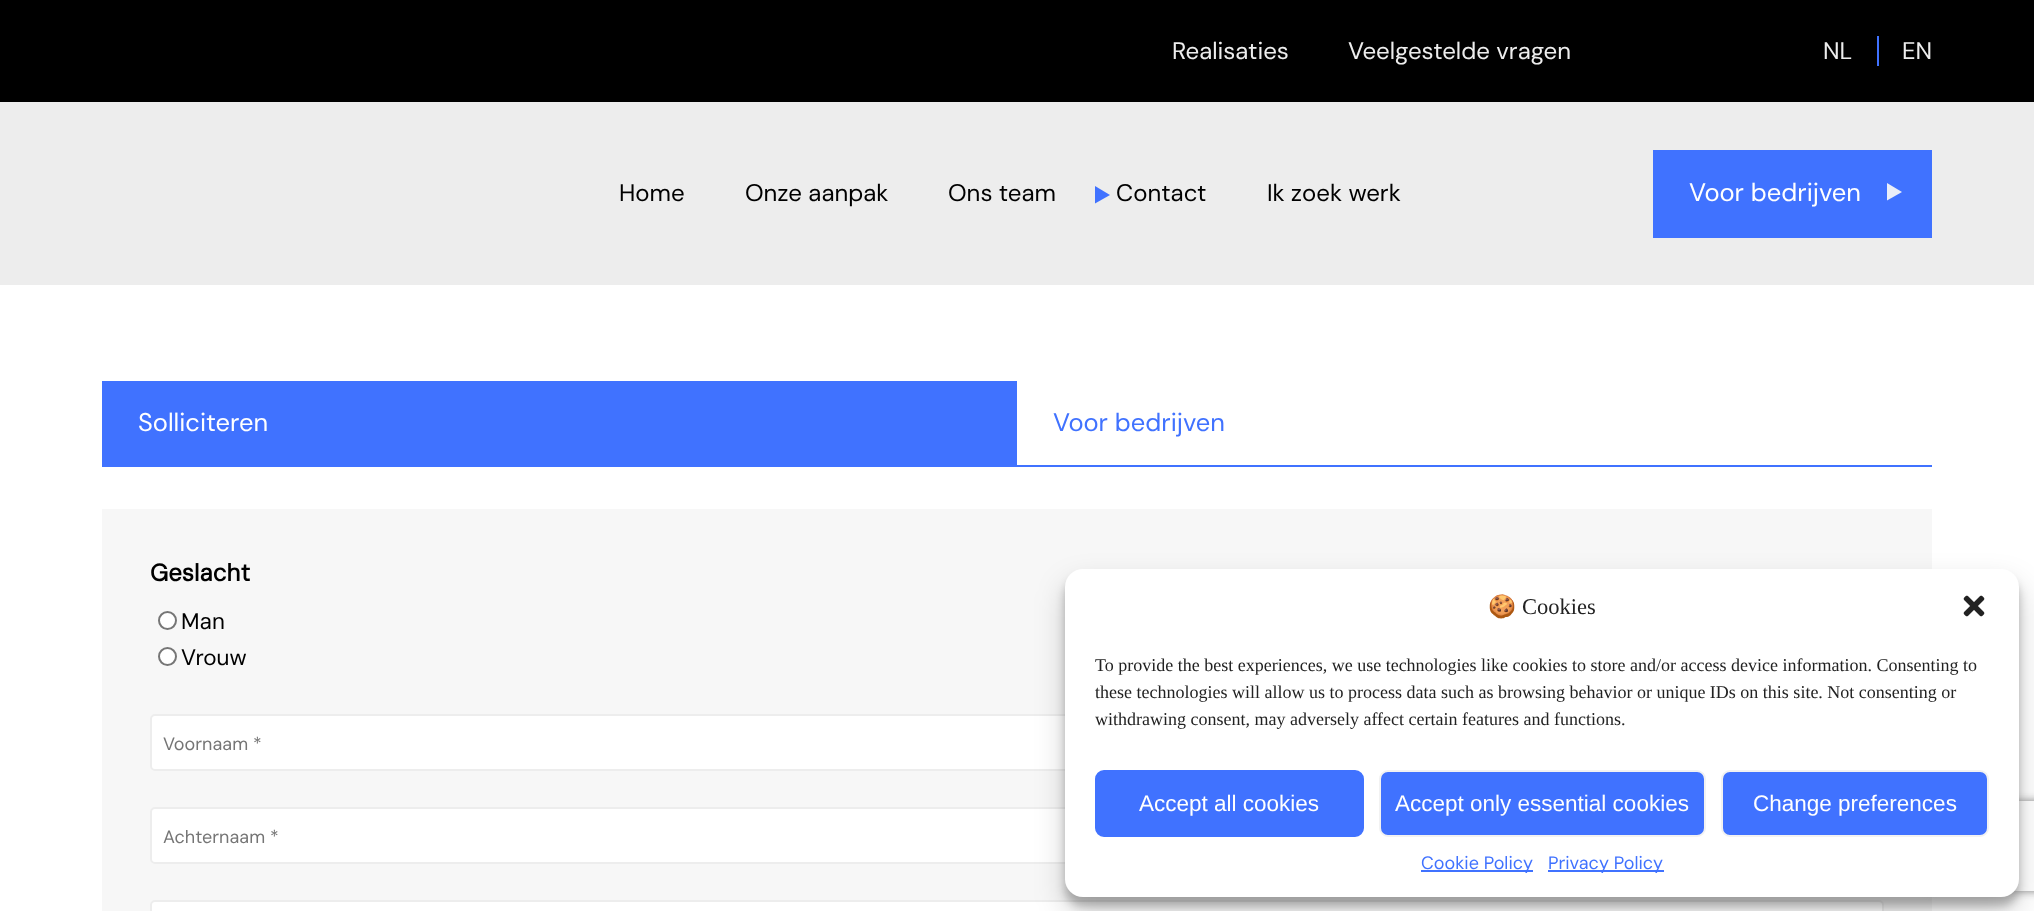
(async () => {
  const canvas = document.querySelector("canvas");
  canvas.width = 2034;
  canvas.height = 911;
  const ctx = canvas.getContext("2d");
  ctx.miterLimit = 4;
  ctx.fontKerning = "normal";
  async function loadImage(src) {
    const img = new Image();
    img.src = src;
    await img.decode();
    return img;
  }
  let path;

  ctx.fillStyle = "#ffffff";
  ctx.fillRect(0, 0, 2034, 911);
  for (const [x, y, w, h, color] of [
    [0, 0, 2034, 102, "#000000"],
    [1877, 36, 2, 30, "#4072ff"],
    [0, 102, 2034, 183, "#ededed"],
  ]) {
    ctx.fillStyle = color;
    ctx.fillRect(x, y, w, h);
  }
  ctx.fillStyle = "#4072ff";
  path = new Path2D("M1095 203.5L1110 195L1095 186Z");
  ctx.fill(path);
  ctx.fillRect(1653, 150, 279, 88);
  ctx.fillStyle = "#eaeef8";
  path = new Path2D("M1887 200.5L1902 192L1887 183Z");
  ctx.fill(path);
  for (const [x, y, w, h, color] of [
    [102, 465, 1830, 2, "#4072ff"],
    [102, 381, 915, 84, "#4072ff"],
    [102, 509, 1830, 402, "#f7f7f7"],
  ]) {
    ctx.fillStyle = color;
    ctx.fillRect(x, y, w, h);
  }
  ctx.fillStyle = "#ffffff";
  ctx.beginPath();
  ctx.arc(167.5, 620.5, 8.5, 0, Math.PI * 2);
  ctx.fill();
  ctx.strokeStyle = "#767676";
  ctx.lineWidth = 2;
  ctx.stroke();
  ctx.beginPath();
  ctx.arc(167.5, 656.5, 8.5, 0, Math.PI * 2);
  ctx.fill();
  ctx.stroke();
  ctx.beginPath();
  ctx.roundRect(151, 715, 1732, 55, 4);
  ctx.fill();
  ctx.strokeStyle = "#ededed";
  ctx.stroke();
  ctx.beginPath();
  ctx.roundRect(151, 808, 1732, 55, 4);
  ctx.fill();
  ctx.stroke();
  ctx.beginPath();
  ctx.roundRect(151, 901, 1732, 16, 4);
  ctx.fill();
  ctx.stroke();
  ctx.fillStyle = "rgba(0, 0, 0, 0.23)";
  ctx.filter = "blur(4.5px)";
  ctx.beginPath();
  ctx.roundRect(1065, 578, 954, 328, 18);
  ctx.fill();
  ctx.filter = "none";
  ctx.fillStyle = "rgba(0, 0, 0, 0.19)";
  ctx.filter = "blur(15px)";
  ctx.beginPath();
  ctx.roundRect(1065, 584, 954, 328, 18);
  ctx.fill();
  ctx.filter = "none";
  ctx.save();
  path = new Path2D("M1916 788H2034V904H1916ZM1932 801H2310C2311.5 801 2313 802.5 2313 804V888C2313 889.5 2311.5 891 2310 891H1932C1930.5 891 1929 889.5 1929 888V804C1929 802.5 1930.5 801 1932 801Z");
  ctx.clip(path, "evenodd");
  ctx.fillStyle = "#808080";
  ctx.filter = "blur(4px)";
  ctx.beginPath();
  ctx.roundRect(1929, 801, 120, 90, 3);
  ctx.fill();
  ctx.filter = "none";
  ctx.restore();
  ctx.fillStyle = "#ffffff";
  ctx.beginPath();
  ctx.roundRect(1065, 569, 954, 328, 18);
  ctx.fill();
  ctx.drawImage(await loadImage("img/1.png"), 1963, 595, 22, 22);
  ctx.fillStyle = "#4072ff";
  ctx.beginPath();
  ctx.roundRect(1096, 771, 267, 65, 8);
  ctx.fill();
  ctx.strokeStyle = "#4072ff";
  ctx.stroke();
  ctx.beginPath();
  ctx.roundRect(1380, 771, 325, 65, 8);
  ctx.fill();
  ctx.strokeStyle = "#f2f2f2";
  ctx.stroke();
  ctx.beginPath();
  ctx.roundRect(1722, 771, 266, 65, 8);
  ctx.fill();
  ctx.stroke();
  ctx.fillRect(1421, 870, 112, 2);
  ctx.fillRect(1548, 870, 116, 2);
  ctx.font = "24px DM Sans";
  ctx.fillStyle = "#ededed";
  for (const [text, x, y] of [
    ["Realisaties", 1172, 59],
    ["Veelgestelde vragen", 1348, 59],
    ["NL", 1823, 59],
    ["EN", 1902, 59],
  ]) {
    ctx.fillText(text, x, y);
  }
  ctx.fillStyle = "#000000";
  for (const [text, x, y] of [
    ["Home", 619, 201],
    ["Onze aanpak", 745, 201],
    ["Ons team", 948, 201],
    ["Contact", 1116, 201],
    ["Ik zoek werk", 1267, 201],
  ]) {
    ctx.fillText(text, x, y);
  }
  ctx.font = "25.5px 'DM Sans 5'";
  ctx.fillStyle = "#ffffff";
  ctx.fillText("Voor bedrijven", 1689, 201);
  ctx.fillText("Solliciteren", 138, 431);
  ctx.fillStyle = "#4072ff";
  ctx.fillText("Voor bedrijven", 1053, 431);
  ctx.font = "bold 24px DM Sans";
  ctx.fillStyle = "#000000";
  ctx.fillText("Geslacht", 150, 581);
  ctx.font = "22.5px 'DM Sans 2'";
  ctx.fillText("Man", 181, 629);
  ctx.font = "22.5px 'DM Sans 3'";
  ctx.fillText("Vrouw", 181, 665);
  ctx.font = "18px 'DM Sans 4'";
  ctx.fillStyle = "#757575";
  ctx.fillText("Voornaam *", 163, 750);
  ctx.fillText("Achternaam *", 163, 843);
  ctx.font = "22.5px Noto Color Emoji";
  ctx.fillStyle = "#222222";
  ctx.fillText("🍪", 1488, 614);
  ctx.font = "22.5px Liberation Serif";
  ctx.fillText("Cookies", 1522, 614);
  ctx.font = "18px Liberation Serif";
  for (const [text, x, y] of [
    ["To provide the best experiences, we use technologies like cookies to store and/or access device information. Consenting to", 1095, 671],
    ["these technologies will allow us to process data such as browsing behavior or unique IDs on this site. Not consenting or", 1095, 698],
    ["withdrawing consent, may adversely affect certain features and functions.", 1095, 725],
  ]) {
    ctx.fillText(text, x, y);
  }
  ctx.font = "22.5px Liberation Sans";
  ctx.fillStyle = "#ffffff";
  for (const [text, x, y] of [
    ["Accept all cookies", 1139, 811],
    ["Accept only essential cookies", 1395, 811],
    ["Change preferences", 1753, 811],
  ]) {
    ctx.fillText(text, x, y);
  }
  ctx.font = "18px 'DM Sans 4'";
  ctx.fillStyle = "#4072ff";
  ctx.fillText("Cookie Policy", 1421, 869);
  ctx.fillText("Privacy Policy", 1548, 869);
})();
